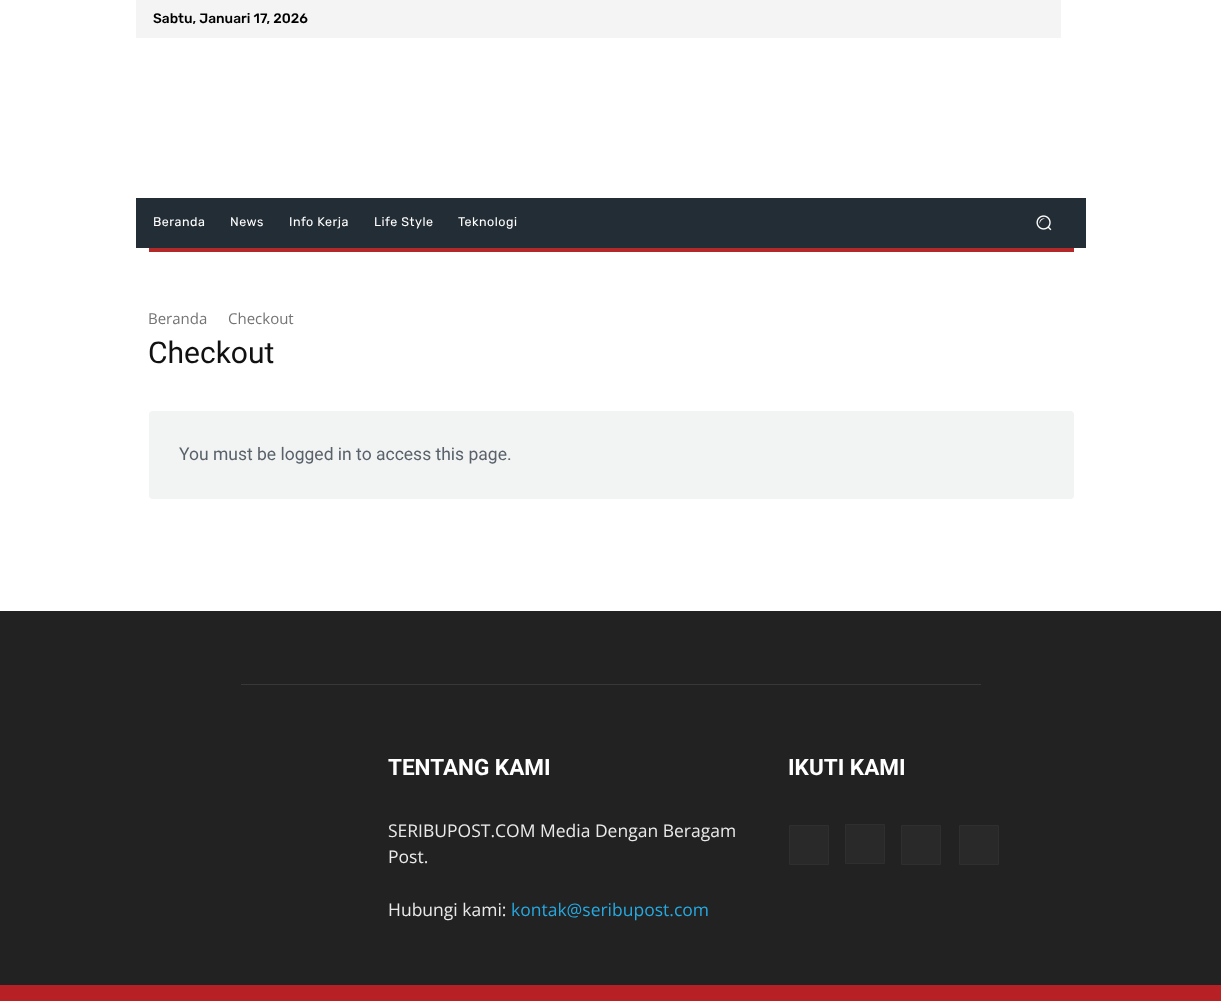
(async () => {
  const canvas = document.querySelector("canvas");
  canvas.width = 1221;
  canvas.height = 1001;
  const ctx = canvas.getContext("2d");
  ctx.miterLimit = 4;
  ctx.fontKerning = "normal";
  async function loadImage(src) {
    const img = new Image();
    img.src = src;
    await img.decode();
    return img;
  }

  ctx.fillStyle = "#ffffff";
  ctx.fillRect(0, 0, 1221, 1001);
  ctx.fillStyle = "#f4f4f4";
  ctx.fillRect(136, 0, 925, 38);
  ctx.fillStyle = "#232d35";
  ctx.fillRect(136, 198, 950, 50);
  ctx.drawImage(await loadImage("img/1.png"), 1036, 215, 16, 16);
  ctx.fillStyle = "#b22929";
  ctx.fillRect(149, 248, 925, 4);
  ctx.fillStyle = "#f2f3f3";
  ctx.beginPath();
  ctx.roundRect(149, 411, 925, 88, 4);
  ctx.fill();
  ctx.fillStyle = "#222222";
  ctx.fillRect(0, 611, 1221, 374);
  ctx.fillStyle = "#383838";
  ctx.fillRect(241, 684, 740, 1);
  ctx.fillStyle = "#292929";
  ctx.beginPath();
  ctx.rect(789.5, 825.5, 39, 39);
  ctx.fill();
  ctx.strokeStyle = "#2f2f2f";
  ctx.stroke();
  ctx.beginPath();
  ctx.rect(845.5, 824.5, 39, 39);
  ctx.fill();
  ctx.stroke();
  ctx.beginPath();
  ctx.rect(901.5, 825.5, 39, 39);
  ctx.fill();
  ctx.stroke();
  ctx.beginPath();
  ctx.rect(959.5, 825.5, 39, 39);
  ctx.fill();
  ctx.stroke();
  ctx.fillStyle = "#b72126";
  ctx.fillRect(0, 985, 1221, 16);
  ctx.font = "500 13.75px Rubik";
  ctx.fillStyle = "#000000";
  ctx.fillText("Sabtu, Januari 17, 2026", 153, 23);
  ctx.letterSpacing = "0.5px";
  ctx.font = "12.5px Rubik";
  ctx.fillStyle = "#ffffff";
  for (const [text, x, y] of [
    ["Beranda", 153, 226],
    ["News", 230, 226],
    ["Info Kerja", 289, 226],
    ["Life Style", 374, 226],
    ["Teknologi", 458, 226],
  ]) {
    ctx.fillText(text, x, y);
  }
  ctx.letterSpacing = "0px";
  ctx.font = "15px Open Sans";
  ctx.fillStyle = "#747474";
  ctx.fillText("Beranda", 148, 324);
  ctx.fillText("Checkout", 228, 324);
  ctx.font = "30px Roboto";
  ctx.fillStyle = "#111111";
  ctx.fillText("Checkout", 148, 363);
  ctx.font = "17.5px Roboto";
  ctx.fillStyle = "#59626b";
  ctx.fillText("You must be logged in to access this page.", 179, 460);
  ctx.font = "bold 22.5px Roboto";
  ctx.fillStyle = "#ffffff";
  ctx.fillText("TENTANG KAMI", 388, 775);
  ctx.font = "17.5px Open Sans";
  ctx.fillStyle = "#eaeaea";
  for (const [text, x, y] of [
    ["SERIBUPOST.COM Media Dengan Beragam", 388, 837],
    ["Post.", 388, 863],
    ["Hubungi kami:", 388, 916],
  ]) {
    ctx.fillText(text, x, y);
  }
  ctx.fillStyle = "#26a9e1";
  ctx.fillText("kontak@seribupost.com", 511, 916);
  ctx.font = "bold 22.5px Roboto";
  ctx.fillStyle = "#ffffff";
  ctx.fillText("IKUTI KAMI", 788, 775);
})();
